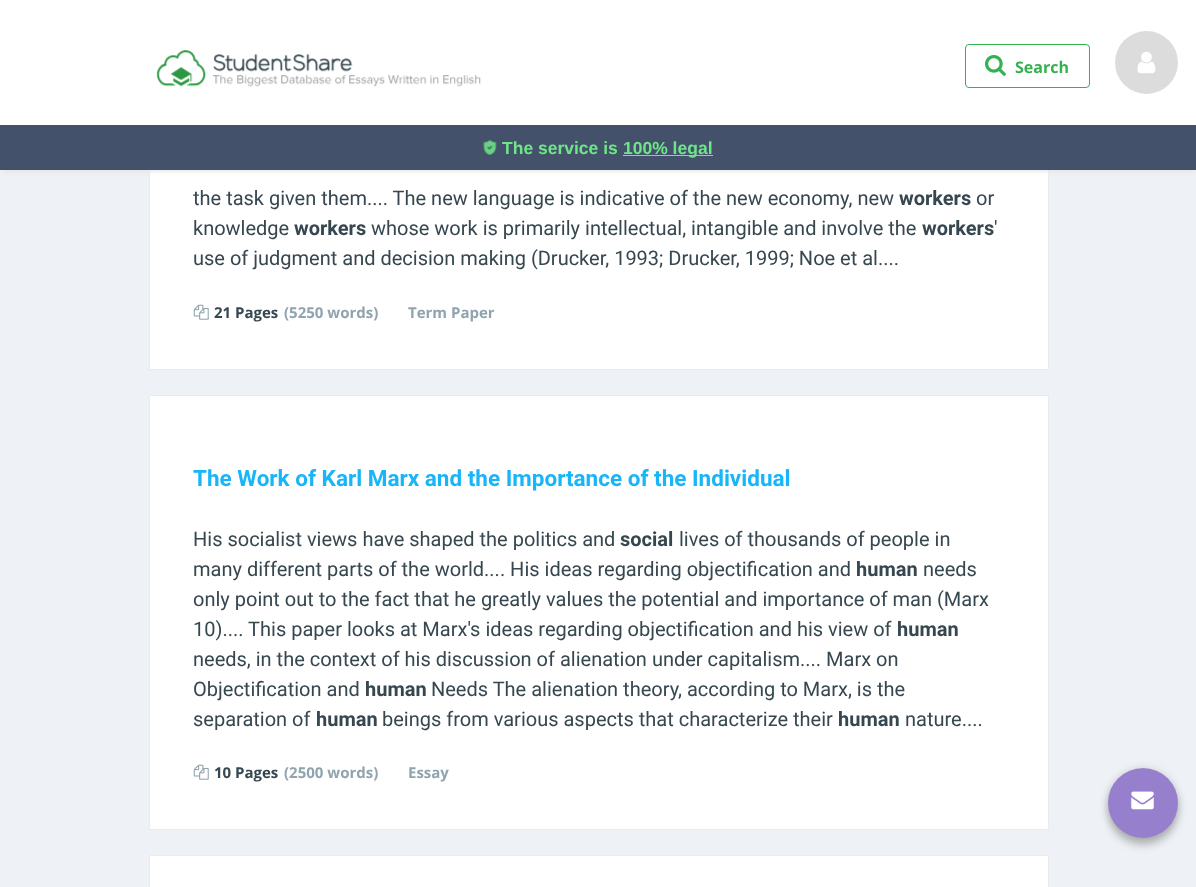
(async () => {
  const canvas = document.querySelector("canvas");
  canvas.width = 1196;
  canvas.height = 887;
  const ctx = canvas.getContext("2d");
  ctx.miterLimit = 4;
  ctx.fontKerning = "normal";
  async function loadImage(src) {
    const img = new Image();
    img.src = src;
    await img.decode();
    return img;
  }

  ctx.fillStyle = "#eef1f5";
  ctx.fillRect(0, 0, 1196, 887);
  ctx.fillStyle = "#ffffff";
  ctx.fillRect(150, 170, 898, 199);
  ctx.strokeStyle = "#e9ebef";
  ctx.strokeRect(149.5, -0.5, 899, 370);
  ctx.fillStyle = "#e1e1e1";
  ctx.filter = "blur(2.5px)";
  ctx.beginPath();
  ctx.rect(3, 6, 1191, 165);
  ctx.fill();
  ctx.filter = "none";
  ctx.fillStyle = "#ffffff";
  ctx.fillRect(0, 0, 1196, 125);
  ctx.drawImage(await loadImage("img/1.png"), 156, 50, 325, 37);
  ctx.beginPath();
  ctx.roundRect(965.5, 44.5, 124, 43, 3.5);
  ctx.strokeStyle = "#35b150";
  ctx.stroke();
  ctx.drawImage(await loadImage("img/2.png"), 985, 55, 21, 21);
  ctx.fillStyle = "#dcdcdc";
  ctx.beginPath();
  ctx.arc(1146.5, 62.5, 31.5, 0, Math.PI * 2);
  ctx.fill();
  ctx.drawImage(await loadImage("img/3.png"), 1137, 51, 19, 23);
  ctx.fillStyle = "#43516a";
  ctx.fillRect(0, 125, 1196, 45);
  ctx.drawImage(await loadImage("img/4.png"), 483, 139, 14, 16);
  ctx.fillStyle = "#6ee688";
  ctx.fillRect(623, 155, 90, 1);
  ctx.drawImage(await loadImage("img/5.png"), 193, 304, 16, 16);
  ctx.fillStyle = "#ffffff";
  ctx.beginPath();
  ctx.rect(149.5, 395.5, 899, 434);
  ctx.fill();
  ctx.strokeStyle = "#e9ebef";
  ctx.stroke();
  ctx.drawImage(await loadImage("img/5.png"), 193, 764, 16, 16);
  ctx.beginPath();
  ctx.rect(149.5, 855.5, 899, 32);
  ctx.fill();
  ctx.stroke();
  ctx.fillStyle = "rgba(0, 0, 0, 0.12)";
  ctx.filter = "blur(4px)";
  ctx.beginPath();
  ctx.roundRect(1108, 768, 70, 70, 35);
  ctx.fill();
  ctx.filter = "none";
  ctx.fillStyle = "rgba(0, 0, 0, 0.24)";
  ctx.filter = "blur(4px)";
  ctx.beginPath();
  ctx.roundRect(1108, 775, 70, 70, 35);
  ctx.fill();
  ctx.filter = "none";
  ctx.fillStyle = "#9680cd";
  ctx.beginPath();
  ctx.arc(1143, 803, 35, 0, Math.PI * 2);
  ctx.fill();
  ctx.fillStyle = "rgba(255, 255, 255, 0.07)";
  ctx.fillRect(1136, 768, 14, 1);
  ctx.drawImage(await loadImage("img/6.png"), 1131, 791, 23, 19);
  ctx.font = "bold 16px Open Sans";
  ctx.fillStyle = "#35b150";
  ctx.fillText("Search", 1015, 73);
  ctx.font = "bold 17.5px Liberation Sans";
  ctx.fillStyle = "#6ee688";
  ctx.fillText("The service is", 502, 154);
  ctx.fillText("100% legal", 623, 154);
  ctx.font = "20px Roboto";
  ctx.fillStyle = "#36474f";
  ctx.fillText("the task given them.... The new language is indicative of the new economy, new", 193, 205);
  ctx.font = "bold 20px Roboto";
  ctx.fillText("workers", 899, 205);
  ctx.font = "20px Roboto";
  ctx.fillText("or", 976, 205);
  ctx.fillText("knowledge", 193, 235);
  ctx.font = "bold 20px Roboto";
  ctx.fillText("workers", 294, 235);
  ctx.font = "20px Roboto";
  ctx.fillText("whose work is primarily intellectual, intangible and involve the", 371, 235);
  ctx.font = "bold 20px Roboto";
  ctx.fillText("workers", 922, 235);
  ctx.font = "20px Roboto";
  ctx.fillText("'", 994, 235);
  ctx.fillText("use of judgment and decision making (Drucker, 1993; Drucker, 1999; Noe et al....", 193, 265);
  ctx.font = "bold 15px Open Sans";
  ctx.fillText("21 Pages", 214, 318);
  ctx.fillStyle = "#90a4ae";
  ctx.fillText("(5250 words)", 284, 318);
  ctx.fillText("Term Paper", 408, 318);
  ctx.font = "bold 22.5px Roboto";
  ctx.fillStyle = "#18b5f9";
  ctx.fillText("The Work of Karl Marx and the Importance of the Individual", 193, 486);
  ctx.font = "20px Roboto";
  ctx.fillStyle = "#36474f";
  ctx.fillText("His socialist views have shaped the politics and", 193, 546);
  ctx.font = "bold 20px Roboto";
  ctx.fillText("social", 620, 546);
  ctx.font = "20px Roboto";
  ctx.fillText("lives of thousands of people in", 679, 546);
  ctx.fillText("many different parts of the world.... His ideas regarding objectification and", 193, 576);
  ctx.font = "bold 20px Roboto";
  ctx.fillText("human", 856, 576);
  ctx.font = "20px Roboto";
  for (const [text, x, y] of [
    ["needs", 923, 576],
    ["only point out to the fact that he greatly values the potential and importance of man (Marx", 193, 606],
    ["10).... This paper looks at Marx's ideas regarding objectification and his view of", 193, 636],
  ]) {
    ctx.fillText(text, x, y);
  }
  ctx.font = "bold 20px Roboto";
  ctx.fillText("human", 897, 636);
  ctx.font = "20px Roboto";
  ctx.fillText("needs, in the context of his discussion of alienation under capitalism.... Marx on", 193, 666);
  ctx.fillText("Objectification and", 193, 696);
  ctx.font = "bold 20px Roboto";
  ctx.fillText("human", 365, 696);
  ctx.font = "20px Roboto";
  ctx.fillText("Needs The alienation theory, according to Marx, is the", 431, 696);
  ctx.fillText("separation of", 193, 726);
  ctx.font = "bold 20px Roboto";
  ctx.fillText("human", 316, 726);
  ctx.font = "20px Roboto";
  ctx.fillText("beings from various aspects that characterize their", 382, 726);
  ctx.font = "bold 20px Roboto";
  ctx.fillText("human", 838, 726);
  ctx.font = "20px Roboto";
  ctx.fillText("nature....", 905, 726);
  ctx.font = "bold 15px Open Sans";
  ctx.fillText("10 Pages", 214, 778);
  ctx.fillStyle = "#90a4ae";
  ctx.fillText("(2500 words)", 284, 778);
  ctx.fillText("Essay", 408, 778);
})();
